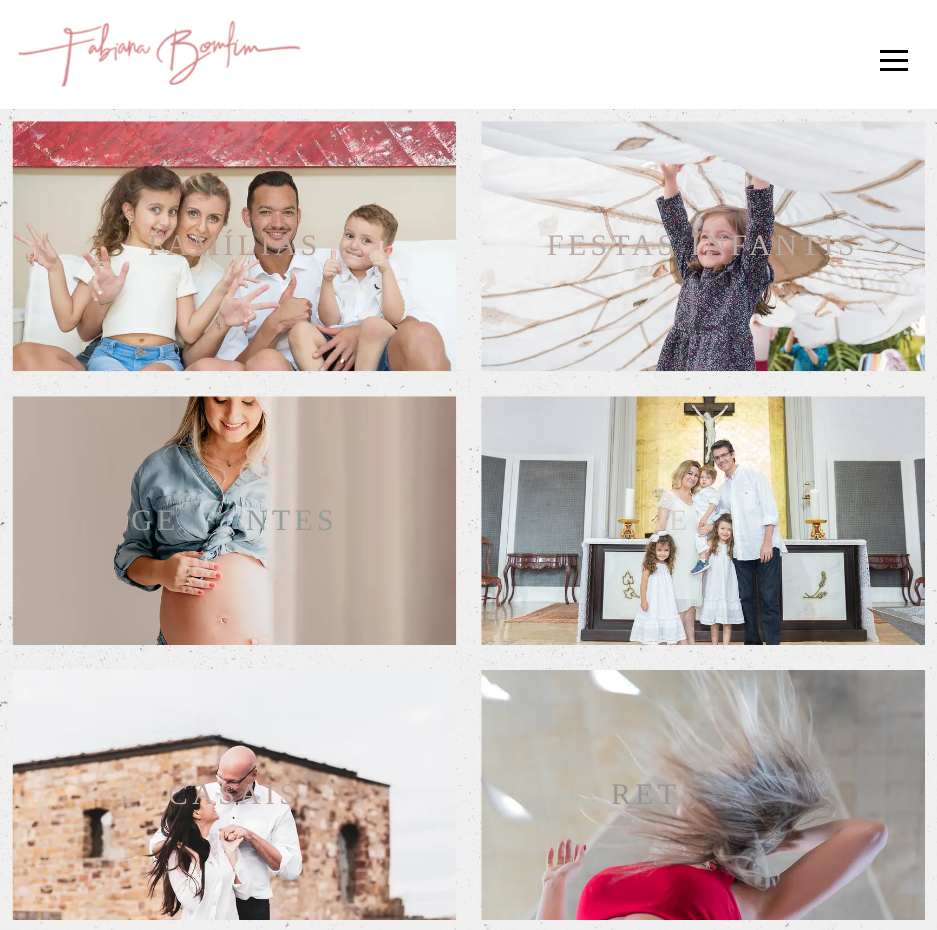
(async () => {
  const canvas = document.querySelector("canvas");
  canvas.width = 937;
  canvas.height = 930;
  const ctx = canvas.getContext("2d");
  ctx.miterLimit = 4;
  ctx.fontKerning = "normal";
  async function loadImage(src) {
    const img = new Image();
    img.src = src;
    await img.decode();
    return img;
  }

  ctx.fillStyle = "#f0f0f0";
  ctx.fillRect(0, 0, 937, 930);
  ctx.drawImage(await loadImage("img/1.png"), 0, 109, 937, 821);
  ctx.fillStyle = "#ffffff";
  ctx.fillRect(0, 0, 937, 109);
  ctx.drawImage(await loadImage("img/2.png"), 18, 20, 283, 67);
  for (const [x, y, w, h, color] of [
    [880, 50, 28, 3, "#000000"],
    [880, 59, 28, 3, "#000000"],
    [880, 68, 28, 3, "#000000"],
  ]) {
    ctx.fillStyle = color;
    ctx.fillRect(x, y, w, h);
  }
  ctx.drawImage(await loadImage("img/3.png"), 12, 121, 445, 251);
  ctx.drawImage(await loadImage("img/4.png"), 481, 121, 444, 251);
  ctx.drawImage(await loadImage("img/5.png"), 12, 396, 445, 249);
  ctx.drawImage(await loadImage("img/6.png"), 481, 396, 444, 249);
  ctx.drawImage(await loadImage("img/7.png"), 12, 670, 445, 250);
  ctx.drawImage(await loadImage("img/8.png"), 481, 670, 444, 250);
  ctx.letterSpacing = "4.4px";
  ctx.font = "29.75px Liberation Serif";
  ctx.fillStyle = "#bca190";
  ctx.fillText("FAMÍLIAS", 148, 255);
  ctx.fillStyle = "#bbaba6";
  ctx.fillText("FESTAS INFANTIS", 547, 255);
  ctx.fillStyle = "#979c9c";
  ctx.fillText("GE", 131, 530);
  ctx.fillText("NTES", 246, 530);
  ctx.fillStyle = "#d6d1c5";
  ctx.fillText("E", 669, 530);
  ctx.fillStyle = "#bba49d";
  ctx.fillText("CASAIS", 168, 804);
  ctx.fillStyle = "#999494";
  ctx.fillText("RET", 611, 804);
})();
